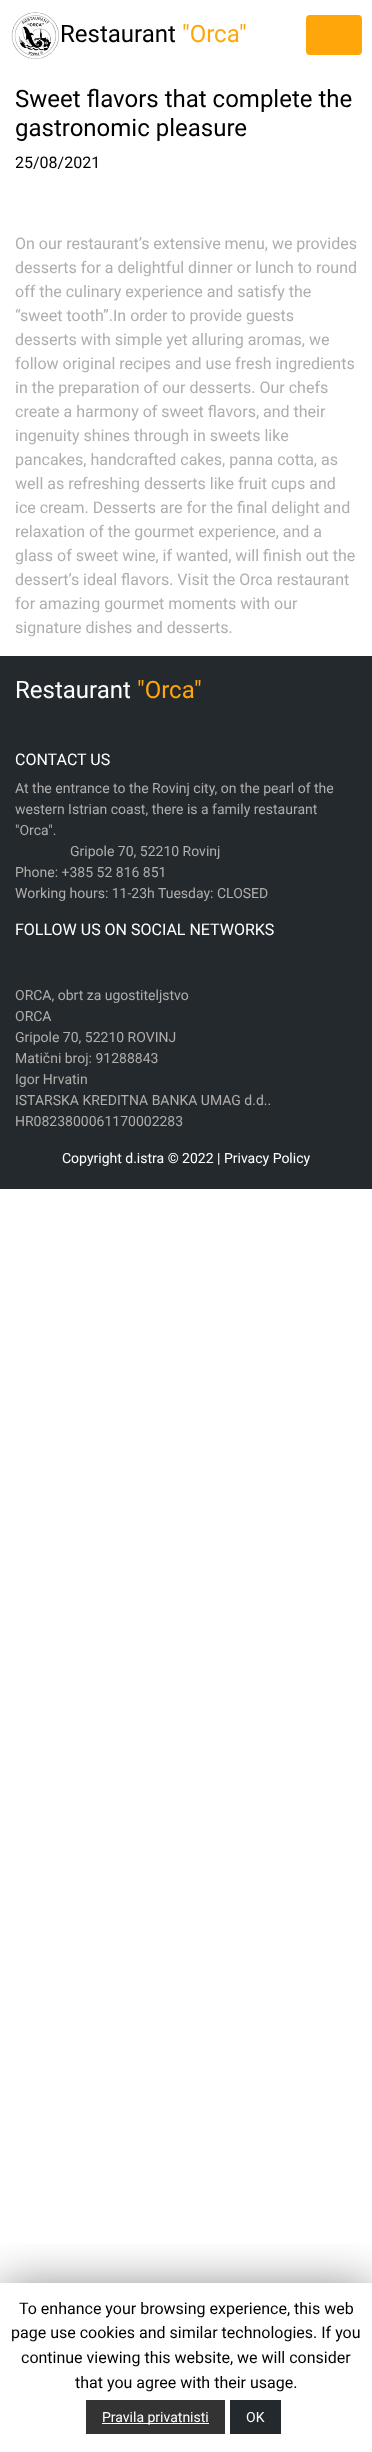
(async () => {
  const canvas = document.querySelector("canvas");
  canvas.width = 372;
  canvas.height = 2452;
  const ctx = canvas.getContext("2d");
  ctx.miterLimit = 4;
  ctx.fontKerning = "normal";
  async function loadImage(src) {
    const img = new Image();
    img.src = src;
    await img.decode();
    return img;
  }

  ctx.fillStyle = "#ffffff";
  ctx.fillRect(0, 0, 372, 2452);
  ctx.drawImage(await loadImage("img/1.png"), 11, 12, 49, 47);
  ctx.fillStyle = "#ffa60a";
  ctx.beginPath();
  ctx.roundRect(306, 15, 56, 40, 4);
  ctx.fill();
  ctx.fillStyle = "#24292d";
  ctx.fillRect(0, 656, 372, 533);
  ctx.save();
  ctx.beginPath();
  ctx.rect(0, 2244, 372, 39);
  ctx.clip();
  ctx.fillStyle = "rgba(0, 0, 0, 0.5)";
  ctx.filter = "blur(25px)";
  ctx.beginPath();
  ctx.rect(0, 2288, 372, 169);
  ctx.fill();
  ctx.filter = "none";
  ctx.restore();
  for (const [x, y, w, h, color] of [
    [86, 2400, 139, 34, "#333333"],
    [102, 2423, 107, 1, "#ffffff"],
    [230, 2400, 51, 34, "#24292d"],
  ]) {
    ctx.fillStyle = color;
    ctx.fillRect(x, y, w, h);
  }
  ctx.font = "24px Roboto";
  ctx.fillStyle = "#000000";
  ctx.fillText("Restaurant", 60, 42);
  ctx.fillStyle = "#ffa60a";
  ctx.fillText("\"Orca\"", 182, 42);
  ctx.fillStyle = "#000000";
  ctx.fillText("Sweet flavors that complete the", 15, 107);
  ctx.fillText("gastronomic pleasure", 15, 136);
  ctx.font = "16px Roboto";
  ctx.fillText("25/08/2021", 15, 168);
  ctx.fillStyle = "#afaeac";
  for (const [text, x, y] of [
    ["On our restaurant’s extensive menu, we provides", 15, 249],
    ["desserts for a delightful dinner or lunch to round", 15, 273],
    ["off the culinary experience and satisfy the", 15, 297],
    ["“sweet tooth”.In order to provide guests", 15, 321],
    ["desserts with simple yet alluring aromas, we", 15, 345],
    ["follow original recipes and use fresh ingredients", 15, 369],
    ["in the preparation of our desserts. Our chefs", 15, 393],
    ["create a harmony of sweet flavors, and their", 15, 417],
    ["ingenuity shines through in sweets like", 15, 441],
    ["pancakes, handcrafted cakes, panna cotta, as", 15, 465],
    ["well as refreshing desserts like fruit cups and", 15, 489],
    ["ice cream. Desserts are for the final delight and", 15, 513],
    ["relaxation of the gourmet experience, and a", 15, 537],
    ["glass of sweet wine, if wanted, will finish out the", 15, 561],
    ["dessert’s ideal flavors. Visit the Orca restaurant", 15, 585],
    ["for amazing gourmet moments with our", 15, 609],
    ["signature dishes and desserts.", 15, 633],
  ]) {
    ctx.fillText(text, x, y);
  }
  ctx.font = "24px Roboto";
  ctx.fillStyle = "#ffffff";
  ctx.fillText("Restaurant", 15, 698);
  ctx.fillStyle = "#ffa60a";
  ctx.fillText("\"Orca\"", 137, 698);
  ctx.font = "16px Roboto";
  ctx.fillStyle = "#ffffff";
  ctx.fillText("CONTACT US", 15, 765);
  ctx.font = "14px Roboto";
  ctx.fillStyle = "#afaeac";
  for (const [text, x, y] of [
    ["At the entrance to the Rovinj city, on the pearl of the", 15, 793],
    ["western Istrian coast, there is a family restaurant", 15, 814],
    ["\"Orca\".", 15, 835],
    ["Gripole 70, 52210 Rovinj", 70, 856],
    ["Phone: +385 52 816 851", 15, 877],
    ["Working hours: 11-23h Tuesday: CLOSED", 15, 898],
  ]) {
    ctx.fillText(text, x, y);
  }
  ctx.font = "16px Roboto";
  ctx.fillStyle = "#ffffff";
  ctx.fillText("FOLLOW US ON SOCIAL NETWORKS", 15, 935);
  ctx.font = "14px Roboto";
  ctx.fillStyle = "#afaeac";
  for (const [text, x, y] of [
    ["ORCA, obrt za ugostiteljstvo", 15, 1000],
    ["ORCA", 15, 1021],
    ["Gripole 70, 52210 ROVINJ", 15, 1042],
    ["Matični broj: 91288843", 15, 1063],
    ["Igor Hrvatin", 15, 1084],
    ["ISTARSKA KREDITNA BANKA UMAG d.d..", 15, 1105],
    ["HR0823800061170002283", 15, 1126],
  ]) {
    ctx.fillText(text, x, y);
  }
  ctx.fillStyle = "#ffffff";
  ctx.fillText("Copyright d.istra © 2022 | Privacy Policy", 62, 1163);
  ctx.font = "16px Roboto";
  ctx.fillStyle = "#000000";
  for (const [text, x, y] of [
    ["To enhance your browsing experience, this web", 19, 2314],
    ["page use cookies and similar technologies. If you", 11, 2338],
    ["continue viewing this website, we will consider", 21, 2363],
    ["that you agree with their usage.", 75, 2388],
  ]) {
    ctx.fillText(text, x, y);
  }
  ctx.font = "14px Roboto";
  ctx.fillStyle = "#ffffff";
  ctx.fillText("Pravila privatnisti", 102, 2422);
  ctx.fillText("OK", 246, 2422);
})();
